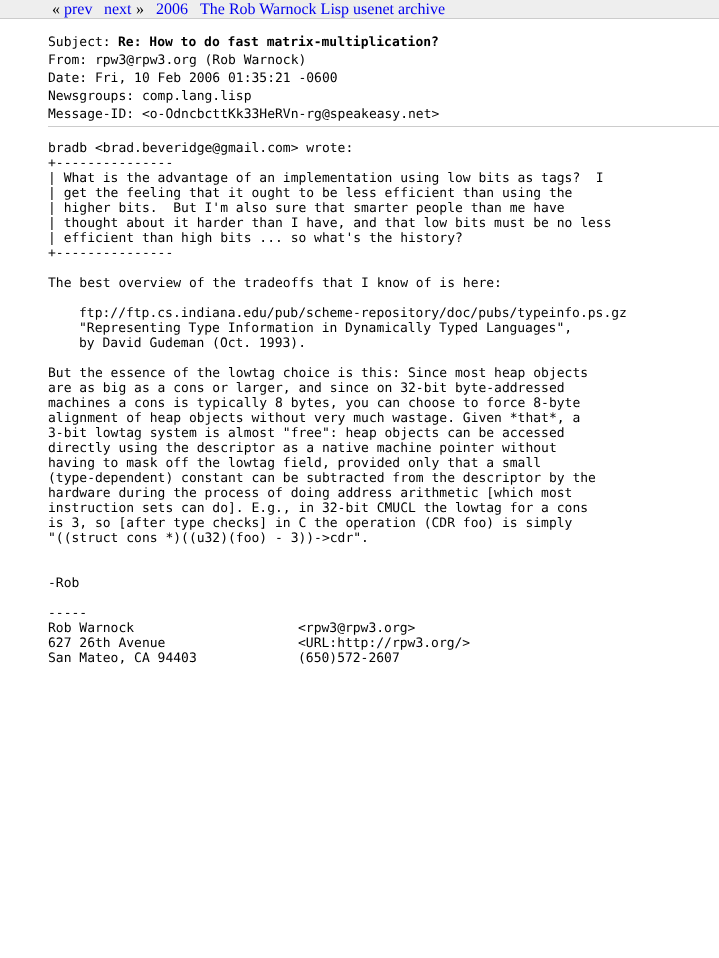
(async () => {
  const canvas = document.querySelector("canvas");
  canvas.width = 719;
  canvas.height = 958;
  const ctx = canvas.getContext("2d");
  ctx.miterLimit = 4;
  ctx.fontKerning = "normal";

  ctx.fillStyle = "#ffffff";
  ctx.fillRect(0, 0, 719, 958);
  for (const [x, y, w, h, color] of [
    [0, 0, 719, 18, "#eeeeee"],
    [0, 18, 719, 1, "#cccccc"],
    [48, 126, 671, 1, "#cccccc"],
  ]) {
    ctx.fillStyle = color;
    ctx.fillRect(x, y, w, h);
  }
  ctx.font = "16px Liberation Serif";
  ctx.fillStyle = "#000000";
  ctx.fillText("«", 52, 14);
  ctx.fillStyle = "#0000ee";
  ctx.fillText("prev", 64, 14);
  ctx.fillText("next", 104, 14);
  ctx.fillStyle = "#000000";
  ctx.fillText("»", 136, 14);
  ctx.fillStyle = "#0000ee";
  ctx.fillText("2006", 156, 14);
  ctx.fillText("The Rob Warnock Lisp usenet archive", 200, 14);
  ctx.font = "13px DejaVu Sans Mono";
  ctx.fillStyle = "#000000";
  ctx.fillText("Subject:", 48, 46);
  ctx.font = "bold 13px DejaVu Sans Mono";
  ctx.fillText("Re: How to do fast matrix-multiplication?", 118, 46);
  ctx.font = "13px DejaVu Sans Mono";
  for (const [text, x, y] of [
    ["From: rpw3@rpw3.org (Rob Warnock)", 48, 64],
    ["Date: Fri, 10 Feb 2006 01:35:21 -0600", 48, 82],
    ["Newsgroups: comp.lang.lisp", 48, 100],
    ["Message-ID: <o-OdncbcttKk33HeRVn-rg@speakeasy.net>", 48, 118],
    ["bradb <brad.beveridge@gmail.com> wrote:", 48, 152],
    ["+---------------", 48, 167],
    ["| What is the advantage of an implementation using low bits as tags?  I", 48, 182],
    ["| get the feeling that it ought to be less efficient than using the", 48, 197],
    ["| higher bits.  But I'm also sure that smarter people than me have", 48, 212],
    ["| thought about it harder than I have, and that low bits must be no less", 48, 227],
    ["| efficient than high bits ... so what's the history?", 48, 242],
    ["+---------------", 48, 257],
    ["The best overview of the tradeoffs that I know of is here:", 48, 287],
    ["ftp://ftp.cs.indiana.edu/pub/scheme-repository/doc/pubs/typeinfo.ps.gz", 79, 317],
    ["\"Representing Type Information in Dynamically Typed Languages\",", 79, 332],
    ["by David Gudeman (Oct. 1993).", 79, 347],
    ["But the essence of the lowtag choice is this: Since most heap objects", 48, 377],
    ["are as big as a cons or larger, and since on 32-bit byte-addressed", 48, 392],
    ["machines a cons is typically 8 bytes, you can choose to force 8-byte", 48, 407],
    ["alignment of heap objects without very much wastage. Given *that*, a", 48, 422],
    ["3-bit lowtag system is almost \"free\": heap objects can be accessed", 48, 437],
    ["directly using the descriptor as a native machine pointer without", 48, 452],
    ["having to mask off the lowtag field, provided only that a small", 48, 467],
    ["(type-dependent) constant can be subtracted from the descriptor by the", 48, 482],
    ["hardware during the process of doing address arithmetic [which most", 48, 497],
    ["instruction sets can do]. E.g., in 32-bit CMUCL the lowtag for a cons", 48, 512],
    ["is 3, so [after type checks] in C the operation (CDR foo) is simply", 48, 527],
    ["\"((struct cons *)((u32)(foo) - 3))->cdr\".", 48, 542],
    ["-Rob", 48, 587],
    ["-----", 48, 617],
    ["Rob Warnock", 48, 632],
    ["<rpw3@rpw3.org>", 298, 632],
    ["627 26th Avenue", 48, 647],
    ["<URL:http://rpw3.org/>", 298, 647],
    ["San Mateo, CA 94403", 48, 662],
    ["(650)572-2607", 298, 662],
  ]) {
    ctx.fillText(text, x, y);
  }
})();
